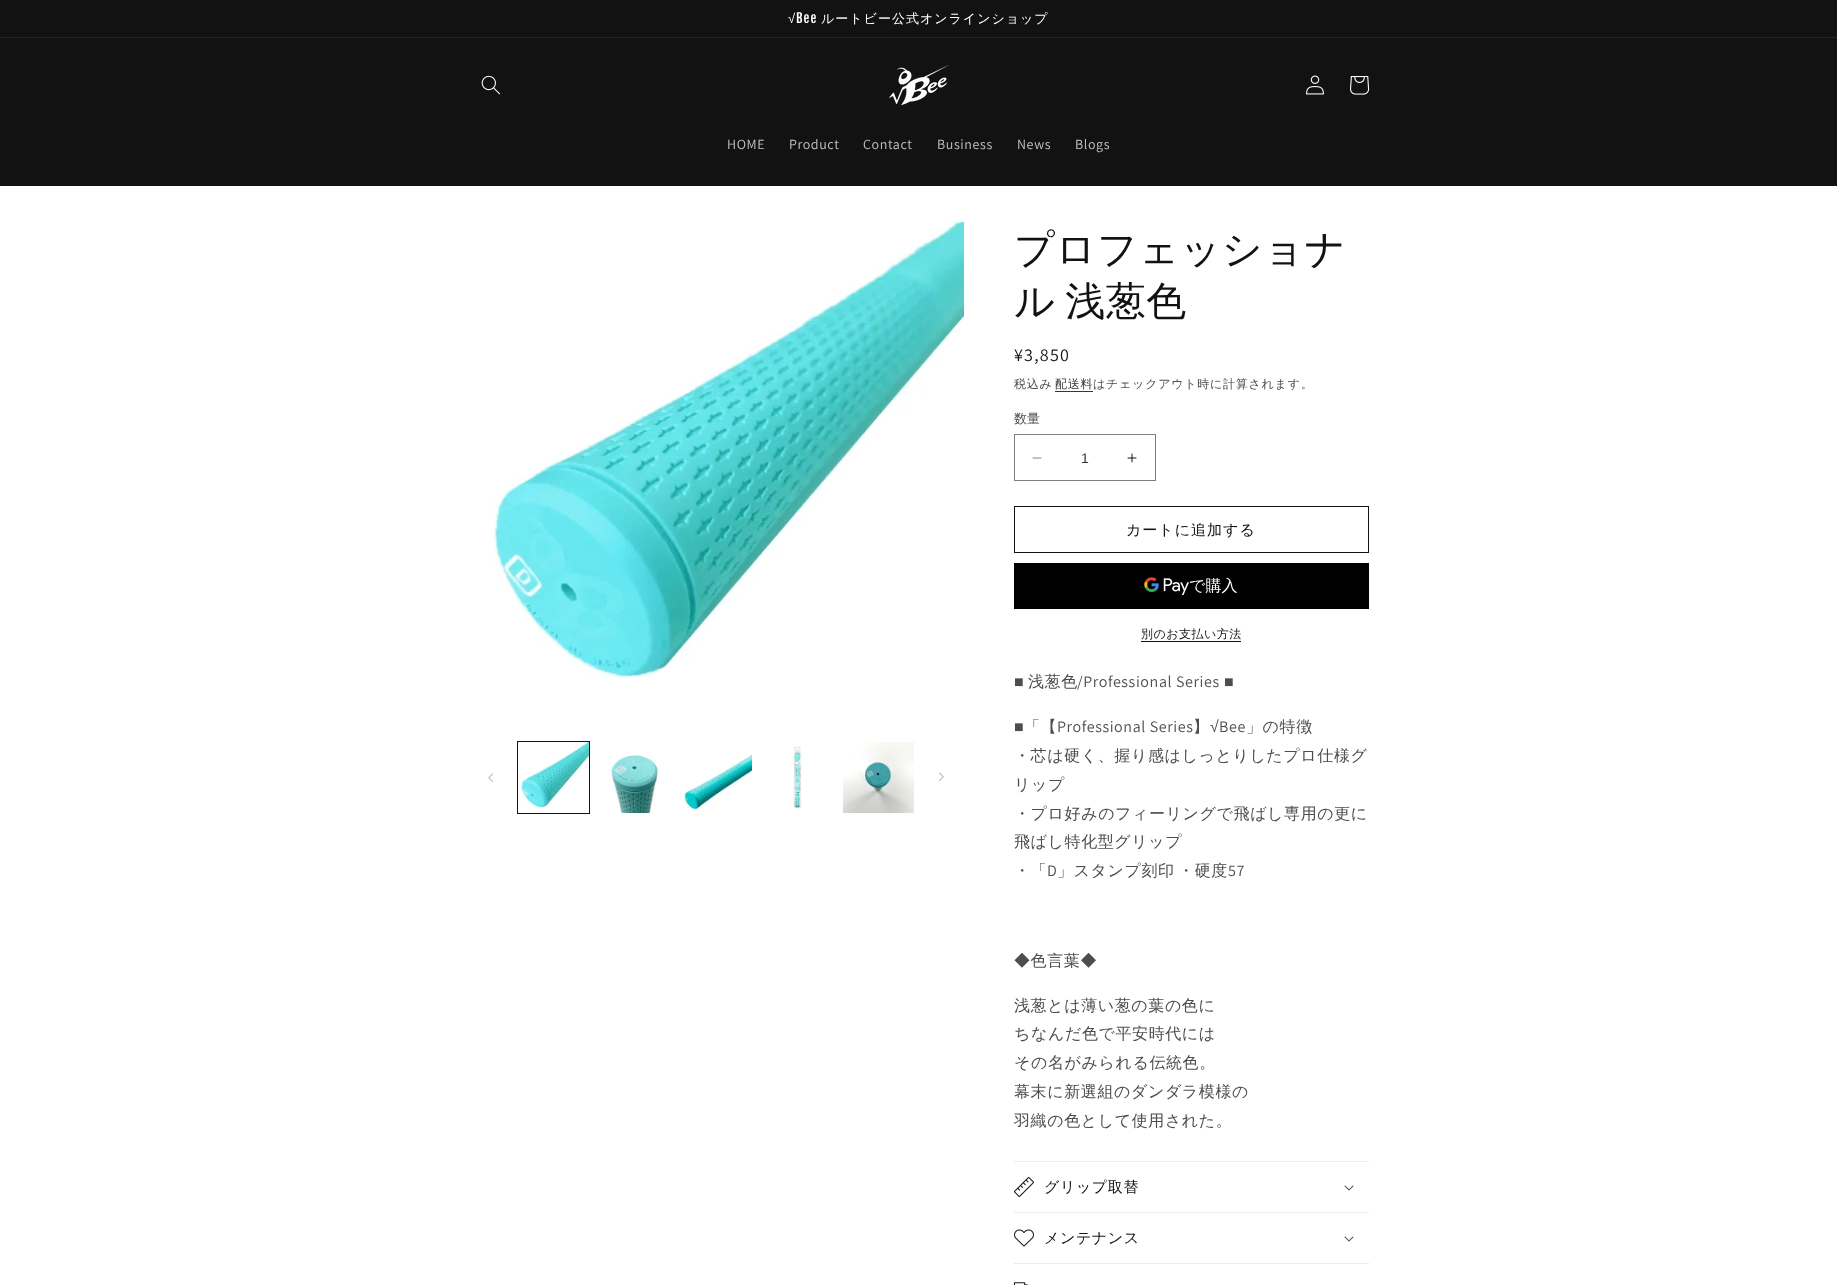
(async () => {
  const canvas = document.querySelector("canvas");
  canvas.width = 1837;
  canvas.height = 1285;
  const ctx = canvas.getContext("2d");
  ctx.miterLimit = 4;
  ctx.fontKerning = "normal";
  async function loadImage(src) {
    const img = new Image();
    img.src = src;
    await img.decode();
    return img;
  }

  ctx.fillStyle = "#ffffff";
  ctx.fillRect(0, 0, 1837, 1285);
  for (const [x, y, w, h, color] of [
    [0, 0, 1837, 37, "#121212"],
    [0, 37, 1837, 1, "#252525"],
    [0, 38, 1837, 148, "#121212"],
  ]) {
    ctx.fillStyle = color;
    ctx.fillRect(x, y, w, h);
  }
  ctx.drawImage(await loadImage("img/1.png"), 481, 75, 19, 20);
  ctx.drawImage(await loadImage("img/2.png"), 889, 65, 60, 40);
  ctx.drawImage(await loadImage("img/3.png"), 1306, 75, 18, 20);
  ctx.drawImage(await loadImage("img/4.png"), 1350, 76, 20, 19);
  ctx.drawImage(await loadImage("img/5.png"), 493, 222, 471, 456);
  ctx.drawImage(await loadImage("img/6.png"), 488, 773, 5, 9);
  ctx.strokeStyle = "#121212";
  ctx.strokeRect(517.5, 741.5, 72, 72);
  ctx.drawImage(await loadImage("img/7.png"), 521, 742, 68, 66);
  ctx.drawImage(await loadImage("img/8.png"), 611, 755, 47, 58);
  ctx.drawImage(await loadImage("img/9.png"), 684, 754, 68, 56);
  ctx.drawImage(await loadImage("img/10.png"), 793, 746, 9, 63);
  ctx.drawImage(await loadImage("img/11.png"), 843, 742, 71, 71);
  ctx.drawImage(await loadImage("img/12.png"), 939, 772, 5, 10);
  ctx.fillStyle = "#363636";
  ctx.fillRect(1055, 391, 38, 1);
  ctx.drawImage(await loadImage("img/13.png"), 1032, 457, 10, 2);
  ctx.drawImage(await loadImage("img/14.png"), 1127, 453, 10, 10);
  ctx.strokeStyle = "#7d7d7d";
  ctx.strokeRect(1014.5, 434.5, 141, 46);
  ctx.strokeStyle = "#121212";
  ctx.strokeRect(1014.5, 506.5, 354, 46);
  ctx.fillStyle = "#000000";
  ctx.fillRect(1014, 563, 355, 46);
  ctx.drawImage(await loadImage("img/15.png"), 1144, 577, 45, 18);
  for (const [x, y, w, h, color] of [
    [1141, 641, 100, 1, "#121212"],
    [1014, 1161, 355, 1, "#ececec"],
    [1014, 1212, 355, 1, "#ececec"],
  ]) {
    ctx.fillStyle = color;
    ctx.fillRect(x, y, w, h);
  }
  ctx.drawImage(await loadImage("img/16.png"), 1014, 1177, 20, 20);
  ctx.drawImage(await loadImage("img/17.png"), 1344, 1185, 10, 6);
  ctx.fillRect(1014, 1263, 355, 1);
  ctx.drawImage(await loadImage("img/18.png"), 1014, 1229, 20, 18);
  ctx.drawImage(await loadImage("img/17.png"), 1344, 1236, 10, 6);
  ctx.drawImage(await loadImage("img/19.png"), 1014, 1282, 15, 3);
  ctx.letterSpacing = "1px";
  ctx.font = "13px Liberation Sans";
  ctx.fillStyle = "#ffffff";
  ctx.fillText("√", 788, 23);
  ctx.font = "13px Fjalla One";
  ctx.fillText("Bee", 796, 23);
  ctx.font = "500 13px WenQuanYi Zen Hei";
  ctx.fillText("ルートビー公式オンラインショップ", 821, 23);
  ctx.letterSpacing = "0.6px";
  ctx.font = "14px Assistant";
  ctx.fillStyle = "#c4c4c4";
  for (const [text, x, y] of [
    ["HOME", 727, 149],
    ["Product", 789, 149],
    ["Contact", 863, 149],
    ["Business", 937, 149],
    ["News", 1017, 149],
    ["Blogs", 1075, 149],
  ]) {
    ctx.fillText(text, x, y);
  }
  ctx.font = "500 40px WenQuanYi Zen Hei";
  ctx.fillStyle = "#121212";
  ctx.fillText("プロフェッショナ", 1014, 263);
  ctx.wordSpacing = "-3px";
  ctx.fillText("ル 浅葱色", 1014, 315);
  ctx.letterSpacing = "1.25px";
  ctx.wordSpacing = "0px";
  ctx.font = "18px Assistant";
  ctx.fillText("¥3,850", 1014, 361);
  ctx.letterSpacing = "0.75px";
  ctx.font = "500 12px WenQuanYi Zen Hei";
  ctx.fillStyle = "#4d4d4d";
  ctx.fillText("税込み", 1014, 388);
  ctx.fillStyle = "#363636";
  ctx.fillText("配送料", 1055, 388);
  ctx.fillStyle = "#4d4d4d";
  ctx.fillText("はチェックアウト時に計算されます。", 1093, 388);
  ctx.letterSpacing = "0px";
  ctx.font = "500 13px WenQuanYi Zen Hei";
  ctx.fillText("数量", 1014, 423);
  ctx.font = "14px Liberation Sans";
  ctx.fillStyle = "#363636";
  ctx.fillText("1", 1081, 463);
  ctx.letterSpacing = "1px";
  ctx.font = "500 15px WenQuanYi Zen Hei";
  ctx.fillStyle = "#121212";
  ctx.fillText("カートに追加する", 1126, 535);
  ctx.letterSpacing = "0px";
  ctx.font = "500 16px WenQuanYi Zen Hei";
  ctx.fillStyle = "#ffffff";
  ctx.fillText("で購入", 1189, 591);
  ctx.letterSpacing = "0.5px";
  ctx.font = "500 12px WenQuanYi Zen Hei";
  ctx.fillStyle = "#121212";
  ctx.fillText("別のお支払い方法", 1141, 638);
  ctx.letterSpacing = "0.6px";
  ctx.font = "16px Liberation Sans";
  ctx.fillStyle = "#4d4d4d";
  ctx.fillText("■", 1014, 687);
  ctx.font = "500 16px WenQuanYi Zen Hei";
  ctx.fillText("浅葱色", 1028, 687);
  ctx.font = "16px Assistant";
  ctx.fillText("/Professional Series", 1077, 687);
  ctx.font = "16px Liberation Sans";
  ctx.fillText("■", 1224, 687);
  ctx.fillText("■", 1014, 732);
  ctx.font = "500 16px WenQuanYi Zen Hei";
  ctx.fillText("「【", 1024, 732);
  ctx.font = "16px Assistant";
  ctx.fillText("Professional Series", 1057, 732);
  ctx.font = "500 16px WenQuanYi Zen Hei";
  ctx.fillText("】", 1193, 732);
  ctx.font = "16px Liberation Sans";
  ctx.fillText("√", 1210, 732);
  ctx.font = "16px Assistant";
  ctx.fillText("Bee", 1219, 732);
  ctx.font = "500 16px WenQuanYi Zen Hei";
  for (const [text, x, y] of [
    ["」の特徴", 1246, 732],
    ["・芯は硬く、握り感はしっとりしたプロ仕様グ", 1014, 761],
    ["リップ", 1014, 790],
    ["・プロ好みのフィーリングで飛ばし専用の更に", 1014, 819],
    ["飛ばし特化型グリップ", 1014, 847],
    ["・「", 1014, 876],
  ]) {
    ctx.fillText(text, x, y);
  }
  ctx.font = "16px Assistant";
  ctx.fillText("D", 1047, 876);
  ctx.wordSpacing = "-2px";
  ctx.font = "500 16px WenQuanYi Zen Hei";
  ctx.fillText("」スタンプ刻印 ・硬度", 1057, 876);
  ctx.wordSpacing = "0px";
  ctx.font = "16px Assistant";
  ctx.fillText("57", 1228, 876);
  ctx.font = "500 16px WenQuanYi Zen Hei";
  for (const [text, x, y] of [
    ["◆色言葉◆", 1014, 966],
    ["浅葱とは薄い葱の葉の色に", 1014, 1011],
    ["ちなんだ色で平安時代には", 1014, 1039],
    ["その名がみられる伝統色。", 1014, 1068],
    ["幕末に新選組のダンダラ模様の", 1014, 1097],
    ["羽織の色として使用された。", 1014, 1126],
  ]) {
    ctx.fillText(text, x, y);
  }
  ctx.font = "500 15px WenQuanYi Zen Hei";
  ctx.fillStyle = "#121212";
  ctx.fillText("グリップ取替", 1044, 1192);
  ctx.fillText("メンテナンス", 1044, 1243);
})();
